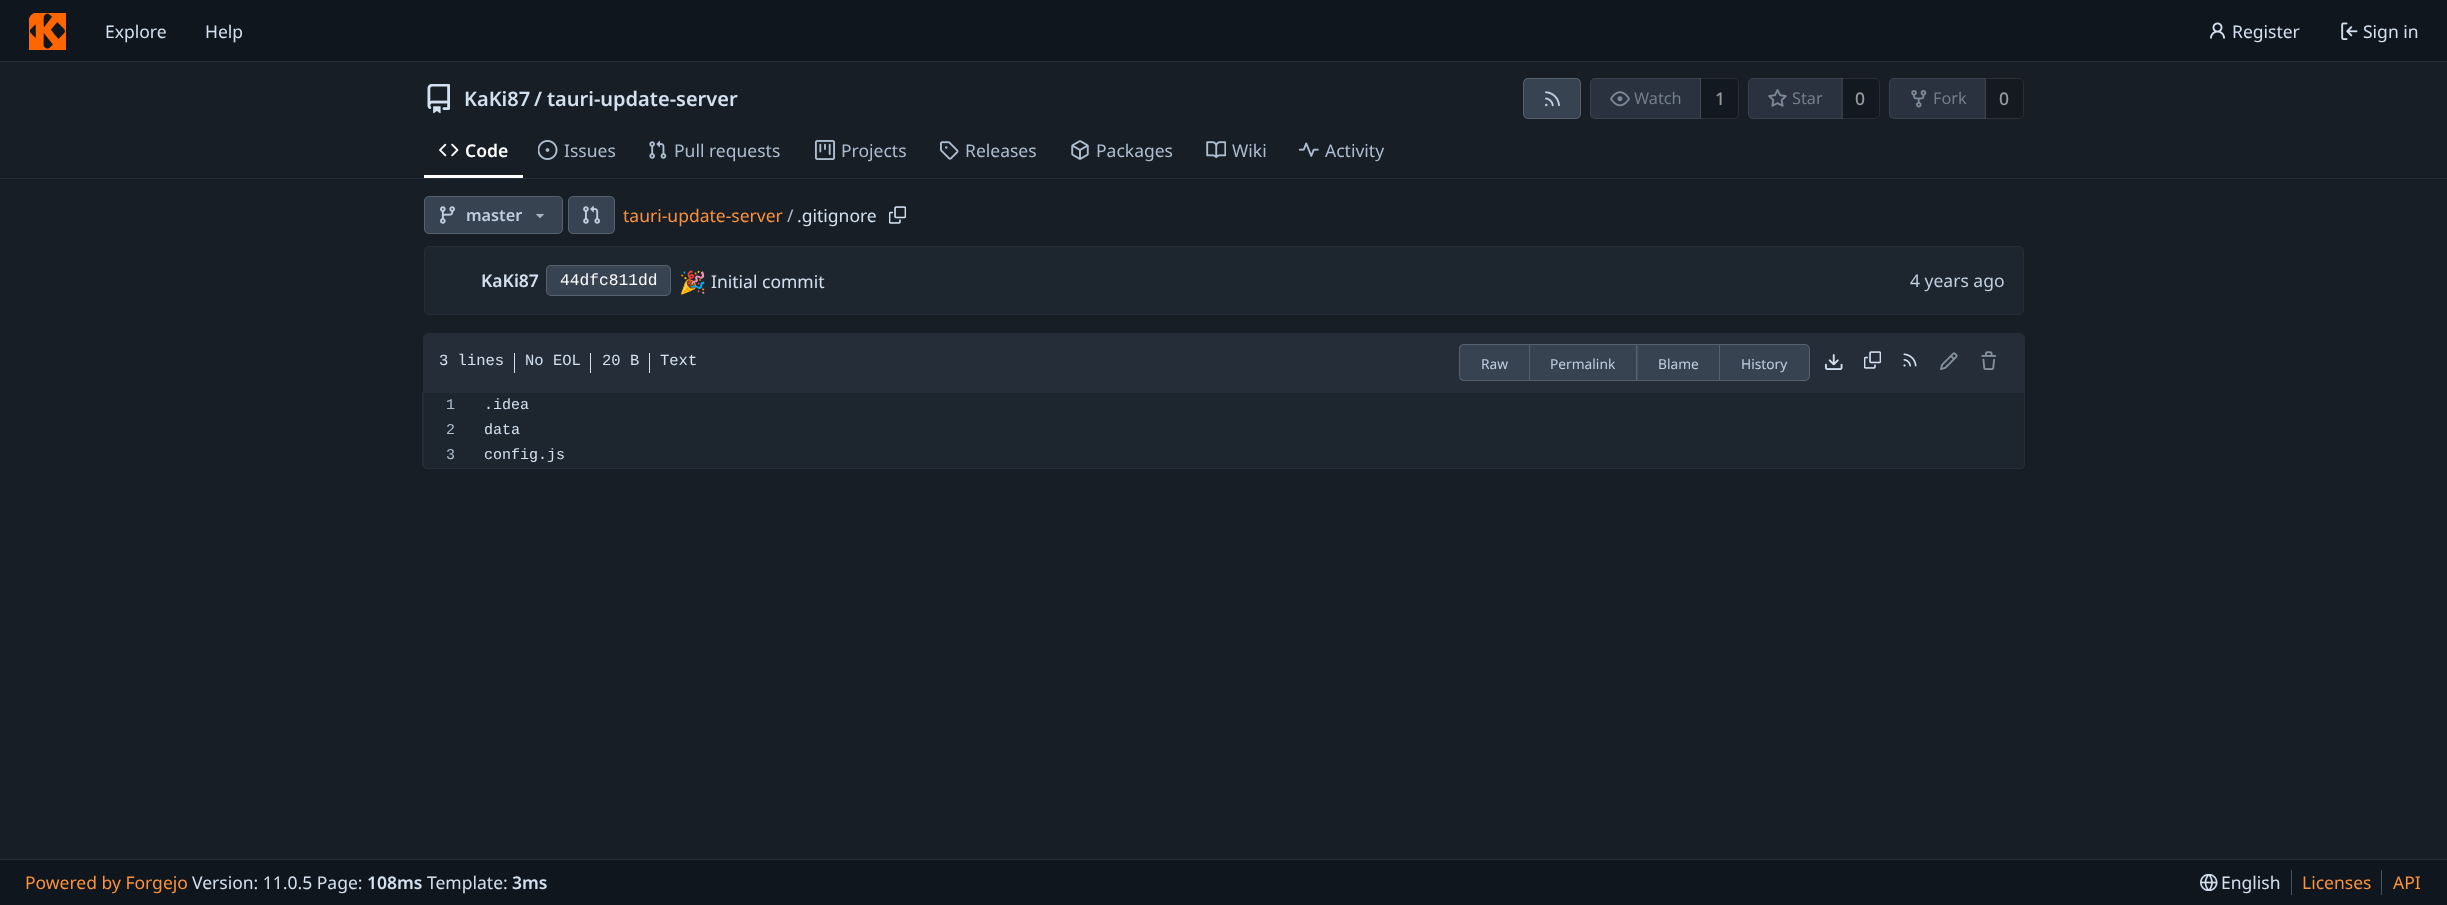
(async () => {
  const canvas = document.querySelector("canvas");
  canvas.width = 2447;
  canvas.height = 905;
  const ctx = canvas.getContext("2d");
  ctx.miterLimit = 4;
  ctx.fontKerning = "normal";
  async function loadImage(src) {
    const img = new Image();
    img.src = src;
    await img.decode();
    return img;
  }
  let path;

  ctx.fillStyle = "#171e26";
  ctx.fillRect(0, 0, 2447, 905);
  ctx.fillStyle = "#10161d";
  ctx.fillRect(0, 0, 2447, 61);
  ctx.fillStyle = "#242d38";
  ctx.fillRect(0, 61, 2447, 1);
  ctx.drawImage(await loadImage("img/1.png"), 29, 13, 37, 37);
  ctx.drawImage(await loadImage("img/2.png"), 2210, 22, 15, 17);
  ctx.drawImage(await loadImage("img/3.png"), 2341, 22, 17, 18);
  ctx.drawImage(await loadImage("img/4.png"), 427, 84, 23, 30);
  ctx.fillStyle = "#374351";
  ctx.beginPath();
  ctx.roundRect(1523, 78, 58, 41, 5);
  ctx.fill();
  ctx.beginPath();
  ctx.roundRect(1523.5, 78.5, 57, 40, 4.5);
  ctx.strokeStyle = "rgba(255, 255, 255, 0.16)";
  ctx.stroke();
  ctx.drawImage(await loadImage("img/5.png"), 1545, 91, 15, 16);
  ctx.fillStyle = "#29323e";
  ctx.beginPath();
  ctx.roundRect(1590, 78, 111, 41, [5, 0, 0, 5]);
  ctx.fill();
  ctx.beginPath();
  ctx.roundRect(1590.5, 78.5, 110, 40, [4.5, 0, 0, 4.5]);
  ctx.strokeStyle = "rgba(151, 154, 157, 0.16)";
  ctx.stroke();
  ctx.drawImage(await loadImage("img/6.png"), 1610, 91, 20, 16);
  ctx.fillStyle = "rgba(0, 0, 0, 0.14)";
  ctx.beginPath();
  ctx.roundRect(1700, 78, 39, 41, [0, 5, 5, 0]);
  ctx.fill();
  ctx.beginPath();
  ctx.roundRect(1700.5, 78.5, 38, 40, [0, 4.5, 4.5, 0]);
  ctx.strokeStyle = "rgba(255, 255, 255, 0.09)";
  ctx.stroke();
  ctx.fillStyle = "#29323e";
  ctx.beginPath();
  ctx.roundRect(1748, 78, 95, 41, [5, 0, 0, 5]);
  ctx.fill();
  ctx.beginPath();
  ctx.roundRect(1748.5, 78.5, 94, 40, [4.5, 0, 0, 4.5]);
  ctx.strokeStyle = "rgba(151, 154, 157, 0.16)";
  ctx.stroke();
  ctx.drawImage(await loadImage("img/7.png"), 1768, 89, 19, 18);
  ctx.fillStyle = "rgba(0, 0, 0, 0.14)";
  ctx.beginPath();
  ctx.roundRect(1841, 78, 39, 41, [0, 5, 5, 0]);
  ctx.fill();
  ctx.beginPath();
  ctx.roundRect(1841.5, 78.5, 38, 40, [0, 4.5, 4.5, 0]);
  ctx.strokeStyle = "rgba(255, 255, 255, 0.09)";
  ctx.stroke();
  ctx.fillStyle = "#29323e";
  ctx.beginPath();
  ctx.roundRect(1889, 78, 97, 41, [5, 0, 0, 5]);
  ctx.fill();
  ctx.beginPath();
  ctx.roundRect(1889.5, 78.5, 96, 40, [4.5, 0, 0, 4.5]);
  ctx.strokeStyle = "rgba(151, 154, 157, 0.16)";
  ctx.stroke();
  ctx.drawImage(await loadImage("img/8.png"), 1911, 90, 16, 18);
  ctx.fillStyle = "rgba(10, 14, 17, 0.25)";
  ctx.beginPath();
  ctx.roundRect(1985, 78, 39, 41, [0, 5, 5, 0]);
  ctx.fill();
  ctx.beginPath();
  ctx.roundRect(1985.5, 78.5, 38, 40, [0, 4.5, 4.5, 0]);
  ctx.stroke();
  ctx.fillStyle = "#ffffff";
  ctx.fillRect(424, 175, 99, 3);
  ctx.drawImage(await loadImage("img/9.png"), 439, 143, 20, 14);
  ctx.drawImage(await loadImage("img/10.png"), 538, 140, 20, 20);
  ctx.drawImage(await loadImage("img/11.png"), 649, 140, 18, 19);
  ctx.drawImage(await loadImage("img/12.png"), 815, 140, 20, 20);
  ctx.drawImage(await loadImage("img/13.png"), 940, 141, 19, 19);
  ctx.drawImage(await loadImage("img/14.png"), 1071, 140, 18, 20);
  ctx.drawImage(await loadImage("img/15.png"), 1206, 141, 20, 18);
  ctx.drawImage(await loadImage("img/16.png"), 1299, 142, 20, 15);
  ctx.fillStyle = "#242d38";
  ctx.fillRect(0, 178, 2447, 1);
  ctx.fillStyle = "#374351";
  ctx.beginPath();
  ctx.roundRect(424, 196, 139, 38, 5);
  ctx.fill();
  ctx.beginPath();
  ctx.roundRect(424.5, 196.5, 138, 37, 4.5);
  ctx.strokeStyle = "rgba(255, 255, 255, 0.16)";
  ctx.stroke();
  ctx.drawImage(await loadImage("img/17.png"), 440, 206, 15, 18);
  ctx.drawImage(await loadImage("img/18.png"), 536, 213, 8, 5);
  ctx.beginPath();
  ctx.roundRect(568, 196, 47, 38, 5);
  ctx.fill();
  ctx.beginPath();
  ctx.roundRect(568.5, 196.5, 46, 37, 4.5);
  ctx.stroke();
  ctx.drawImage(await loadImage("img/19.png"), 583, 205, 17, 19);
  ctx.drawImage(await loadImage("img/20.png"), 889, 206, 17, 18);
  ctx.fillStyle = "#1d262f";
  ctx.beginPath();
  ctx.roundRect(424.5, 246.5, 1599, 68, 4.5);
  ctx.fill();
  ctx.strokeStyle = "#242d38";
  ctx.stroke();
  ctx.fillStyle = "#374351";
  ctx.beginPath();
  ctx.roundRect(546, 265, 125, 31, 5);
  ctx.fill();
  ctx.beginPath();
  ctx.roundRect(546.5, 265.5, 124, 30, 4.5);
  ctx.strokeStyle = "rgba(255, 255, 255, 0.16)";
  ctx.stroke();
  ctx.fillStyle = "#242d38";
  ctx.beginPath();
  ctx.roundRect(423.5, 333.5, 1601, 59, [4.5, 4.5, 0, 0]);
  ctx.fill();
  ctx.strokeStyle = "#242d38";
  ctx.stroke();
  for (const [x, y, w, h, color] of [
    [514, 353, 1, 20, "#d2e0f0"],
    [590, 353, 1, 20, "#d2e0f0"],
    [649, 353, 1, 20, "#d2e0f0"],
  ]) {
    ctx.fillStyle = color;
    ctx.fillRect(x, y, w, h);
  }
  ctx.fillStyle = "#374351";
  ctx.beginPath();
  ctx.roundRect(1459, 344, 70, 37, [5, 0, 0, 5]);
  ctx.fill();
  ctx.fillStyle = "rgba(255, 255, 255, 0.16)";
  path = new Path2D("M1464 344H1529V381H1464C1461 381 1459 379 1459 376V349C1459 346 1461 344 1464 344ZM1464 345H1529V380H1464C1462 380 1460 378 1460 376V349C1460 347 1462 345 1464 345Z");
  ctx.fill(path, "evenodd");
  ctx.fillStyle = "#374351";
  ctx.fillRect(1529, 344, 190, 37);
  ctx.fillStyle = "#56616c";
  path = new Path2D("M1529 344H1636V345H1530Z");
  ctx.fill(path);
  path = new Path2D("M1636 381H1529L1530 380H1636Z");
  ctx.fill(path);
  ctx.fillStyle = "rgba(255, 255, 255, 0.16)";
  path = new Path2D("M1529 381V344L1530 345V380Z");
  ctx.fill(path);
  ctx.fillStyle = "#56616c";
  path = new Path2D("M1636 344H1719V345H1638Z");
  ctx.fill(path);
  path = new Path2D("M1719 381H1636L1638 380H1719Z");
  ctx.fill(path);
  ctx.fillStyle = "rgba(255, 255, 255, 0.16)";
  path = new Path2D("M1636 381V344L1637.5 345V380Z");
  ctx.fill(path);
  ctx.fillStyle = "#374351";
  ctx.beginPath();
  ctx.roundRect(1719, 344, 91, 37, [0, 5, 5, 0]);
  ctx.fill();
  ctx.beginPath();
  ctx.roundRect(1719.5, 344.5, 90, 36, [0, 4.5, 4.5, 0]);
  ctx.strokeStyle = "rgba(255, 255, 255, 0.16)";
  ctx.stroke();
  ctx.drawImage(await loadImage("img/21.png"), 1825, 354, 18, 16);
  ctx.drawImage(await loadImage("img/22.png"), 1864, 351, 17, 18);
  ctx.drawImage(await loadImage("img/23.png"), 1903, 353, 14, 14);
  ctx.drawImage(await loadImage("img/24.png"), 1940, 352, 18, 18);
  ctx.drawImage(await loadImage("img/25.png"), 1981, 351, 16, 19);
  ctx.fillStyle = "#1d262f";
  ctx.beginPath();
  ctx.roundRect(423, 393, 1602, 76, [0, 0, 5, 5]);
  ctx.fill();
  ctx.fillStyle = "#242d38";
  path = new Path2D("M422 392H2025V464C2025 467 2023 469 2020 469H428C425 469 422 467 422 464ZM424 392H2024V464C2024 466 2022 468 2020 468H428C425 468 424 466 424 464Z");
  ctx.fill(path, "evenodd");
  ctx.fillStyle = "#10161d";
  ctx.fillRect(0, 860, 2447, 45);
  ctx.fillStyle = "#242d38";
  ctx.fillRect(0, 859, 2447, 1);
  ctx.drawImage(await loadImage("img/26.png"), 2200, 874, 18, 17);
  ctx.fillStyle = "#445161";
  ctx.fillRect(2291, 870, 1, 25);
  ctx.fillRect(2381, 870, 1, 25);
  ctx.font = "17.5px Noto Sans";
  ctx.fillStyle = "#d2e0f0";
  for (const [text, x, y] of [
    ["Explore", 105, 38],
    ["Help", 205, 38],
    ["Register", 2232, 38],
    ["Sign in", 2363, 38],
  ]) {
    ctx.fillText(text, x, y);
  }
  ctx.font = "600 20px Noto Sans";
  for (const [text, x, y] of [
    ["KaKi87", 464, 106],
    ["/", 534, 106],
    ["tauri-update-server", 547, 106],
  ]) {
    ctx.fillText(text, x, y);
  }
  ctx.font = "16.25px Noto Sans";
  ctx.fillStyle = "#747f8c";
  ctx.fillText("Watch", 1634, 104);
  ctx.font = "500 17.5px Noto Sans";
  ctx.fillStyle = "#979a9d";
  ctx.fillText("1", 1715, 105);
  ctx.font = "16.25px Noto Sans";
  ctx.fillStyle = "#747f8c";
  ctx.fillText("Star", 1792, 104);
  ctx.font = "500 17.5px Noto Sans";
  ctx.fillStyle = "#979a9d";
  ctx.fillText("0", 1855, 105);
  ctx.font = "16.25px Noto Sans";
  ctx.fillStyle = "#747f8c";
  ctx.fillText("Fork", 1933, 104);
  ctx.font = "500 17.5px Noto Sans";
  ctx.fillStyle = "#979a9d";
  ctx.fillText("0", 1999, 105);
  ctx.font = "600 17.5px Noto Sans";
  ctx.fillStyle = "#ffffff";
  ctx.fillText("Code", 465, 157);
  ctx.font = "17.5px Noto Sans";
  ctx.fillStyle = "#aebed0";
  for (const [text, x, y] of [
    ["Issues", 564, 157],
    ["Pull requests", 674, 157],
    ["Projects", 841, 157],
    ["Releases", 965, 157],
    ["Packages", 1096, 157],
    ["Wiki", 1232, 157],
    ["Activity", 1325, 157],
  ]) {
    ctx.fillText(text, x, y);
  }
  ctx.font = "600 16.25px Noto Sans";
  ctx.fillStyle = "#c0cfe0";
  ctx.fillText("master", 466, 221);
  ctx.font = "17.5px Noto Sans";
  ctx.fillStyle = "#fb923c";
  ctx.fillText("tauri-update-server", 623, 222);
  ctx.fillStyle = "#aebed0";
  ctx.fillText("/", 787, 222);
  ctx.fillStyle = "#d2e0f0";
  ctx.fillText(".gitignore", 797, 222);
  ctx.font = "600 17.5px Noto Sans";
  ctx.fillText("KaKi87", 481, 287);
  ctx.font = "16.25px Liberation Mono";
  ctx.fillStyle = "#ffffff";
  ctx.fillText("44dfc811dd", 560, 285);
  ctx.font = "22px Noto Color Emoji";
  ctx.fillStyle = "#d2e0f0";
  ctx.fillText("🎉", 679, 290);
  ctx.font = "17.5px Noto Sans";
  ctx.fillText("Initial commit", 711, 288);
  ctx.fillStyle = "#c0cfe0";
  ctx.fillText("4 years ago", 1910, 287);
  ctx.font = "15.5px Liberation Mono";
  ctx.fillStyle = "#d2e0f0";
  for (const [text, x, y] of [
    ["3 lines", 439, 365],
    ["No EOL", 525, 365],
    ["20 B", 602, 365],
    ["Text", 660, 365],
  ]) {
    ctx.fillText(text, x, y);
  }
  ctx.font = "13.75px Noto Sans";
  ctx.fillStyle = "#c0cfe0";
  for (const [text, x, y] of [
    ["Raw", 1481, 369],
    ["Permalink", 1550, 369],
    ["Blame", 1658, 369],
    ["History", 1741, 369],
  ]) {
    ctx.fillText(text, x, y);
  }
  ctx.font = "15px Liberation Mono";
  ctx.fillStyle = "#aebed0";
  ctx.fillText("1", 446, 409);
  ctx.fillStyle = "#d2e0f0";
  ctx.fillText(".idea", 484, 409);
  ctx.fillStyle = "#aebed0";
  ctx.fillText("2", 446, 434);
  ctx.fillStyle = "#d2e0f0";
  ctx.fillText("data", 484, 434);
  ctx.fillStyle = "#aebed0";
  ctx.fillText("3", 446, 459);
  ctx.fillStyle = "#d2e0f0";
  ctx.fillText("config.js", 484, 459);
  ctx.font = "17.5px Noto Sans";
  ctx.fillStyle = "#fb923c";
  ctx.fillText("Powered by Forgejo", 25, 889);
  ctx.fillStyle = "#d2e0f0";
  ctx.fillText("Version: 11.0.5 Page:", 192, 889);
  ctx.font = "600 17.5px Noto Sans";
  ctx.fillText("108ms", 367, 889);
  ctx.font = "17.5px Noto Sans";
  ctx.fillText("Template:", 427, 889);
  ctx.font = "600 17.5px Noto Sans";
  ctx.fillText("3ms", 512, 889);
  ctx.font = "17.5px Noto Sans";
  ctx.fillText("English", 2221, 889);
  ctx.fillStyle = "#fb923c";
  ctx.fillText("Licenses", 2302, 889);
  ctx.fillText("API", 2393, 889);
})();
